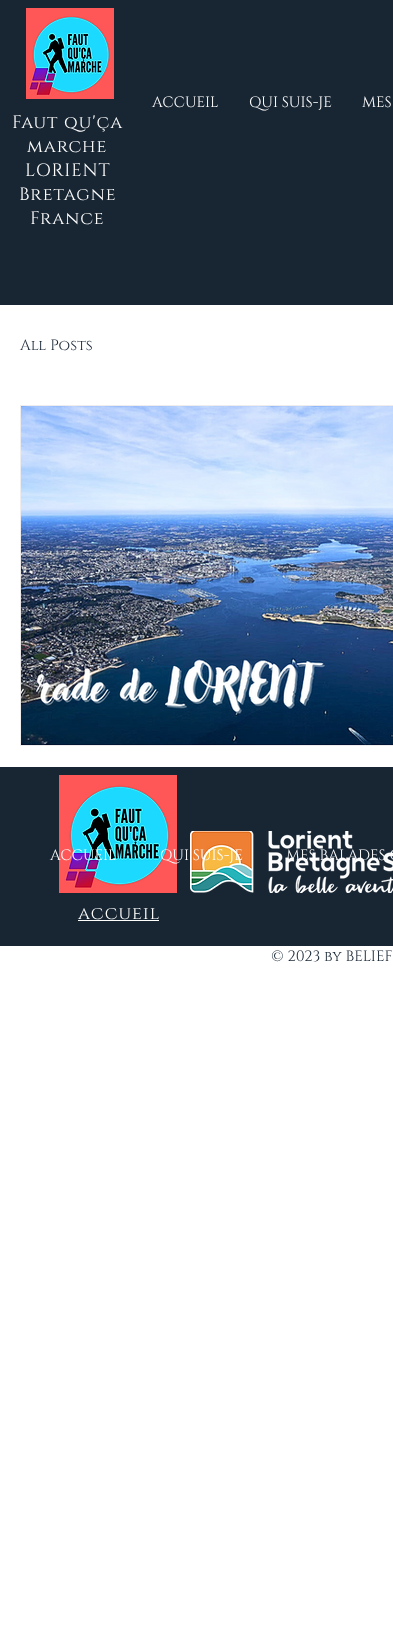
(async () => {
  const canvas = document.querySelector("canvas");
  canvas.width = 393;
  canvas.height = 1626;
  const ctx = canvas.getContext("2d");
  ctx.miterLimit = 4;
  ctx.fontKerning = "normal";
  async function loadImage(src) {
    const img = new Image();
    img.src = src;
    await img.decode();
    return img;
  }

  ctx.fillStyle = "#ffffff";
  ctx.fillRect(0, 0, 393, 1626);
  ctx.fillStyle = "#182634";
  ctx.fillRect(0, 0, 393, 305);
  ctx.drawImage(await loadImage("img/1.png"), 26, 8, 88, 91);
  ctx.strokeStyle = "#eeecec";
  ctx.strokeRect(20.5, 405.5, 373, 340);
  ctx.drawImage(await loadImage("img/2.png"), 21, 406, 372, 339);
  ctx.fillRect(0, 767, 393, 179);
  ctx.drawImage(await loadImage("img/3.png"), 59, 775, 118, 118);
  ctx.drawImage(await loadImage("img/4.png"), 190, 831, 203, 62);
  ctx.fillStyle = "#ffffff";
  ctx.fillRect(78, 920, 81, 1);
  ctx.font = "15px Cinzel";
  for (const [text, x, y] of [
    ["ACCUEIL", 152, 107],
    ["QUI SUIS-JE", 249, 107],
    ["MES", 362, 107],
  ]) {
    ctx.fillText(text, x, y);
  }
  ctx.letterSpacing = "1px";
  ctx.font = "18px Cinzel";
  for (const [text, x, y] of [
    ["Faut qu'ça", 12, 128],
    ["marche", 27, 152],
    ["LORIENT", 25, 176],
    ["Bretagne", 19, 200],
    ["France", 30, 224],
  ]) {
    ctx.fillText(text, x, y);
  }
  ctx.letterSpacing = "0px";
  ctx.font = "15px Cinzel";
  ctx.fillStyle = "#182634";
  ctx.fillText("All Posts", 20, 350);
  ctx.fillStyle = "#ffffff";
  for (const [text, x, y] of [
    ["ACCUEIL", 50, 860],
    ["QUI SUIS-JE", 160, 860],
    ["MES BALADES G", 286, 860],
  ]) {
    ctx.fillText(text, x, y);
  }
  ctx.letterSpacing = "1px";
  ctx.font = "18px Cinzel";
  ctx.fillText("accueil", 78, 919);
  ctx.letterSpacing = "0px";
  ctx.font = "15px Cinzel";
  ctx.fillStyle = "#182634";
  ctx.fillText("© 2023 by BELIEF", 271, 961);
})();
